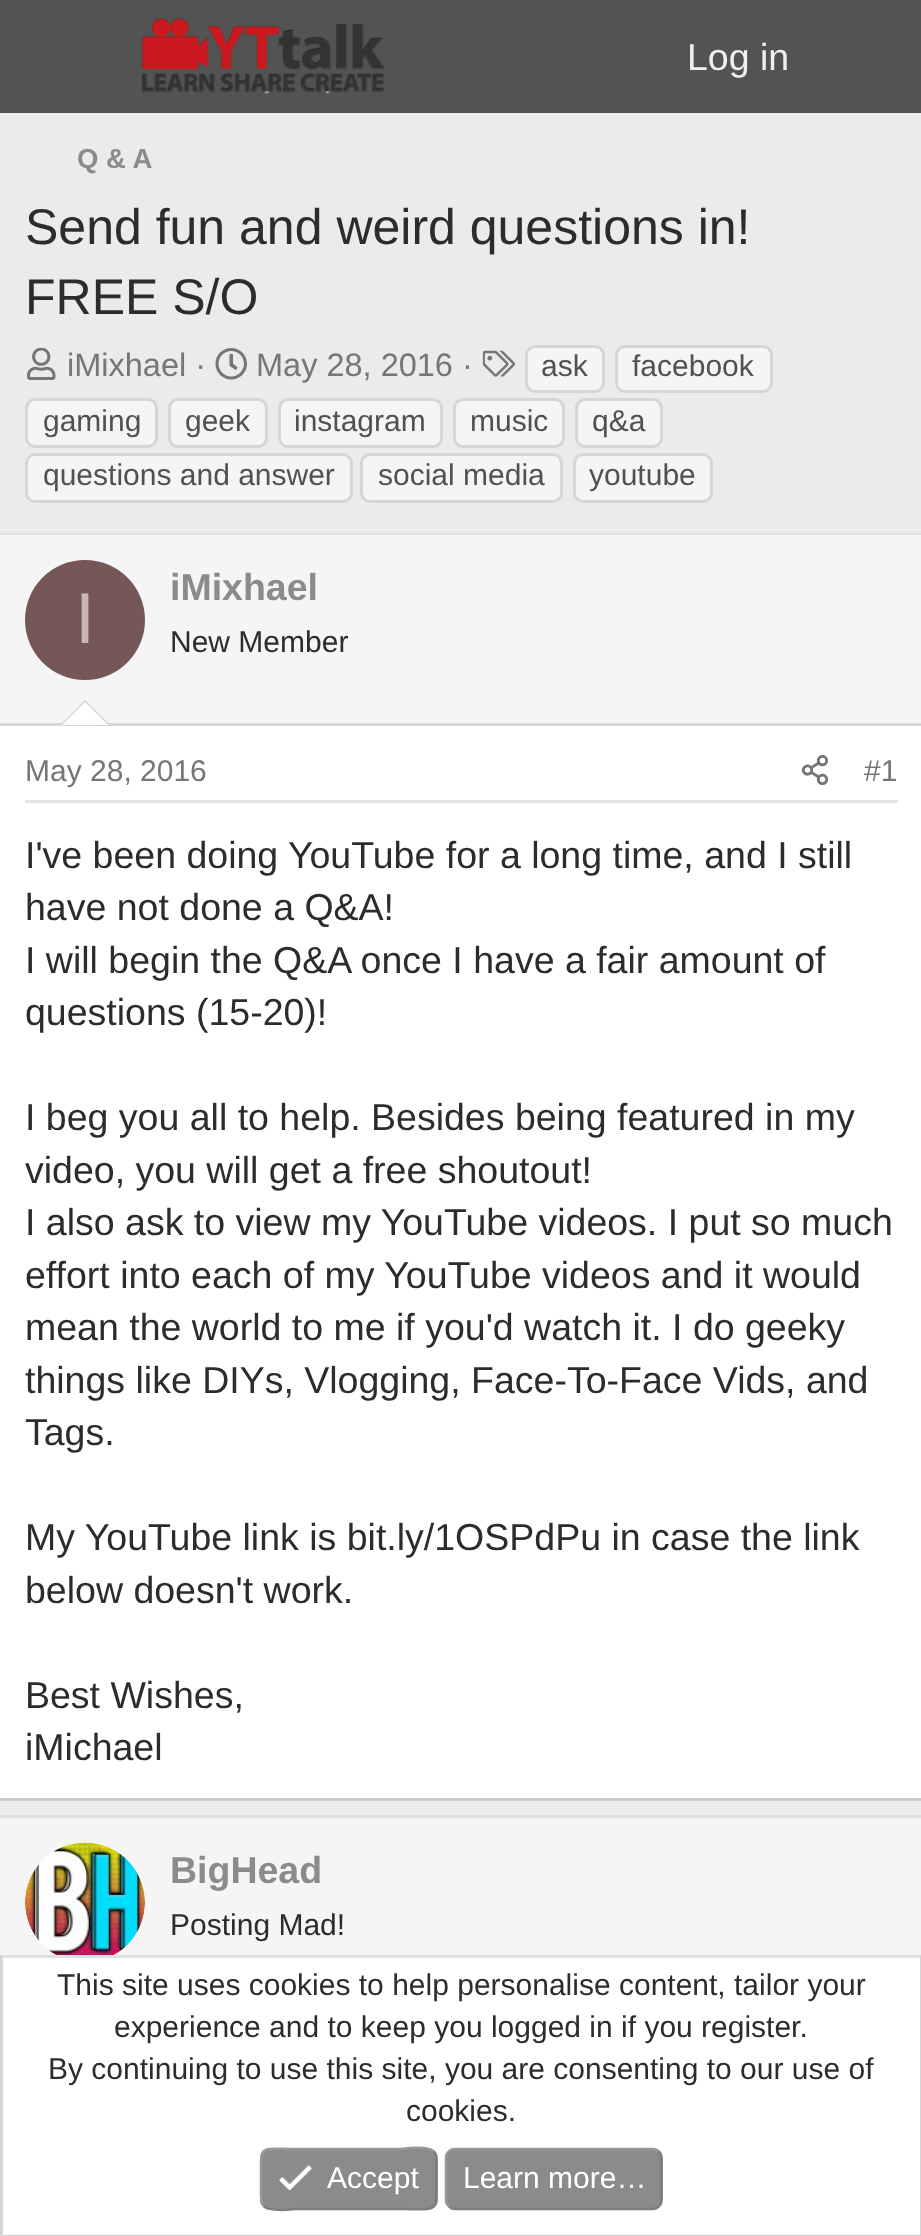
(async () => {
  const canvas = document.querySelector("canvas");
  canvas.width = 921;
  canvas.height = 2236;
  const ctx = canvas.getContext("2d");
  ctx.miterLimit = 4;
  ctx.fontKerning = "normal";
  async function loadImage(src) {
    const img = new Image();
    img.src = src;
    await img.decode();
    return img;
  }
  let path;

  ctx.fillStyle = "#ebebeb";
  ctx.fillRect(0, 0, 921, 2236);
  ctx.fillStyle = "#535353";
  ctx.fillRect(0, 0, 921, 113);
  ctx.drawImage(await loadImage("img/1.png"), 141, 18, 244, 76);
  ctx.drawImage(await loadImage("img/2.png"), 27, 347, 29, 33);
  ctx.drawImage(await loadImage("img/3.png"), 215, 348, 32, 32);
  ctx.drawImage(await loadImage("img/4.png"), 482, 350, 33, 27);
  ctx.fillStyle = "#f5f5f5";
  ctx.beginPath();
  ctx.roundRect(526.5, 346.5, 77, 45, 8.5);
  ctx.fill();
  ctx.strokeStyle = "#d6d6d6";
  ctx.lineWidth = 3;
  ctx.stroke();
  ctx.beginPath();
  ctx.roundRect(616.5, 346.5, 155, 45, 8.5);
  ctx.fill();
  ctx.stroke();
  ctx.beginPath();
  ctx.roundRect(26.5, 399.5, 130, 47, 8.5);
  ctx.fill();
  ctx.stroke();
  ctx.beginPath();
  ctx.roundRect(169.5, 399.5, 97, 47, 8.5);
  ctx.fill();
  ctx.stroke();
  ctx.beginPath();
  ctx.roundRect(279.5, 399.5, 162, 47, 8.5);
  ctx.fill();
  ctx.stroke();
  ctx.beginPath();
  ctx.roundRect(454.5, 399.5, 109, 47, 8.5);
  ctx.fill();
  ctx.stroke();
  ctx.beginPath();
  ctx.roundRect(576.5, 399.5, 85, 47, 8.5);
  ctx.fill();
  ctx.stroke();
  ctx.beginPath();
  ctx.roundRect(26.5, 454.5, 325, 47, 8.5);
  ctx.fill();
  ctx.stroke();
  ctx.beginPath();
  ctx.roundRect(361.5, 454.5, 200, 47, 8.5);
  ctx.fill();
  ctx.stroke();
  ctx.beginPath();
  ctx.roundRect(574.5, 454.5, 137, 47, 8.5);
  ctx.fill();
  ctx.stroke();
  for (const [x, y, w, h, color] of [
    [0, 726, 921, 1072, "#ffffff"],
    [0, 533, 921, 2, "#e0e0e0"],
    [0, 1798, 921, 3, "#cccccc"],
    [0, 535, 921, 188, "#f5f5f5"],
    [0, 723, 921, 3, "#d6d6d6"],
  ]) {
    ctx.fillStyle = color;
    ctx.fillRect(x, y, w, h);
  }
  ctx.fillStyle = "#755757";
  ctx.beginPath();
  ctx.arc(85, 620, 60, 0, Math.PI * 2);
  ctx.fill();
  ctx.fillStyle = "#d6d6d6";
  path = new Path2D("M110 725H60L85 700Z");
  ctx.fill(path);
  ctx.fillStyle = "#ffffff";
  path = new Path2D("M108 725H62L85 702Z");
  ctx.fill(path);
  ctx.fillStyle = "#e5e5e5";
  ctx.fillRect(25, 800, 873, 3);
  ctx.drawImage(await loadImage("img/5.png"), 801, 755, 28, 30);
  ctx.fillStyle = "#e0e0e0";
  ctx.fillRect(0, 1815, 921, 3);
  ctx.fillStyle = "#f5f5f5";
  ctx.fillRect(0, 1818, 921, 137);
  ctx.fillStyle = "#ffffff";
  ctx.beginPath();
  ctx.arc(85, 1903, 60, 0, Math.PI * 2);
  ctx.fill();
  ctx.drawImage(await loadImage("img/6.png"), 25, 1842, 120, 113);
  for (const [x, y, w, h, color] of [
    [3, 1958, 917, 277, "#ffffff"],
    [0, 1955, 921, 3, "#e0e0e0"],
    [920, 1955, 1, 281, "#d6d6d6"],
    [0, 2235, 921, 1, "#cccccc"],
    [0, 1955, 3, 281, "#d6d6d6"],
  ]) {
    ctx.fillStyle = color;
    ctx.fillRect(x, y, w, h);
  }
  ctx.fillStyle = "#8b8b8b";
  ctx.beginPath();
  ctx.roundRect(260, 2148, 178, 62, 10);
  ctx.fill();
  path = new Path2D("M433.5 2151.5C437 2155 436 2160 436 2164.5V2179C436 2214 439.5 2209 401 2209H296C295 2209 270 2212.5 264 2206");
  ctx.strokeStyle = "#7e7e7e";
  ctx.lineWidth = 2.5;
  ctx.stroke(path);
  path = new Path2D("M264 2206C260.5 2202.5 261 2197.5 261 2193V2179C261 2143.5 258 2149 296 2149H401C402.5 2149 427.5 2145 433.5 2151.5");
  ctx.strokeStyle = "#989898";
  ctx.stroke(path);
  ctx.drawImage(await loadImage("img/7.png"), 279, 2165, 33, 26);
  ctx.beginPath();
  ctx.roundRect(445, 2148, 218, 62, 10);
  ctx.fill();
  path = new Path2D("M658.5 2151.5C660.5 2153 661 2155 661 2157.5V2200C661 2202.5 660.5 2204.5 658.5 2206C657 2208 655 2209 652.5 2209H455C452.5 2209 450.5 2208 449 2206");
  ctx.strokeStyle = "#7e7e7e";
  ctx.stroke(path);
  path = new Path2D("M449 2206C447 2204.5 446 2202.5 446 2200V2157.5C446 2155 447 2153 449 2151.5C450.5 2149.5 452.5 2149 455 2149H652.5C655 2149 657 2149.5 658.5 2151.5");
  ctx.strokeStyle = "#989898";
  ctx.stroke(path);
  ctx.font = "37.5px Liberation Sans";
  ctx.fillStyle = "#f0f0f0";
  ctx.fillText("Log in", 687, 70);
  ctx.font = "bold 27.5px Liberation Sans";
  ctx.fillStyle = "#8b8b8b";
  ctx.fillText("Q & A", 77, 168);
  ctx.font = "50px Liberation Sans";
  ctx.fillStyle = "#2c2c2c";
  ctx.fillText("Send fun and weird questions in!", 25, 244);
  ctx.fillText("FREE S/O", 25, 314);
  ctx.font = "32.5px Liberation Sans";
  ctx.fillStyle = "#767676";
  ctx.fillText("iMixhael ·", 67, 376);
  ctx.fillText("May 28, 2016 ·", 256, 376);
  ctx.font = "30px Liberation Sans";
  ctx.fillStyle = "#515151";
  for (const [text, x, y] of [
    ["ask", 541, 376],
    ["facebook", 632, 376],
    ["gaming", 43, 431],
    ["geek", 185, 431],
    ["instagram", 294, 431],
    ["music", 470, 431],
    ["q&a", 592, 431],
    ["questions and answer", 43, 485],
    ["social media", 378, 485],
    ["youtube", 589, 485],
  ]) {
    ctx.fillText(text, x, y);
  }
  ctx.font = "72px Liberation Sans";
  ctx.fillStyle = "#c9b6b6";
  ctx.fillText("I", 75, 643);
  ctx.font = "bold 37.5px Liberation Sans";
  ctx.fillStyle = "#8b8b8b";
  ctx.fillText("iMixhael", 170, 600);
  ctx.font = "30px Liberation Sans";
  ctx.fillStyle = "#2c2c2c";
  ctx.fillText("New Member", 170, 652);
  ctx.fillStyle = "#767676";
  ctx.fillText("May 28, 2016", 25, 781);
  ctx.fillText("#1", 864, 781);
  ctx.font = "37.5px Liberation Sans";
  ctx.fillStyle = "#2c2c2c";
  for (const [text, x, y] of [
    ["I've been doing YouTube for a long time, and I still", 25, 868],
    ["have not done a Q&A!", 25, 920],
    ["I will begin the Q&A once I have a fair amount of", 25, 973],
    ["questions (15-20)!", 25, 1025],
    ["I beg you all to help. Besides being featured in my", 25, 1130],
    ["video, you will get a free shoutout!", 25, 1183],
    ["I also ask to view my YouTube videos. I put so much", 25, 1235],
    ["effort into each of my YouTube videos and it would", 25, 1288],
    ["mean the world to me if you'd watch it. I do geeky", 25, 1340],
    ["things like DIYs, Vlogging, Face-To-Face Vids, and", 25, 1393],
    ["Tags.", 25, 1445],
    ["My YouTube link is bit.ly/1OSPdPu in case the link", 25, 1550],
    ["below doesn't work.", 25, 1603],
    ["Best Wishes,", 25, 1708],
    ["iMichael", 25, 1760],
  ]) {
    ctx.fillText(text, x, y);
  }
  ctx.font = "bold 37.5px Liberation Sans";
  ctx.fillStyle = "#8b8b8b";
  ctx.fillText("BigHead", 170, 1883);
  ctx.font = "30px Liberation Sans";
  ctx.fillStyle = "#2c2c2c";
  for (const [text, x, y] of [
    ["Posting Mad!", 170, 1935],
    ["This site uses cookies to help personalise content, tailor your", 57, 1995],
    ["experience and to keep you logged in if you register.", 114, 2037],
    ["By continuing to use this site, you are consenting to our use of", 48, 2079],
    ["cookies.", 406, 2121],
  ]) {
    ctx.fillText(text, x, y);
  }
  ctx.fillStyle = "#ffffff";
  ctx.fillText("Accept", 327, 2188);
  ctx.fillText("Learn more…", 463, 2188);
})();
